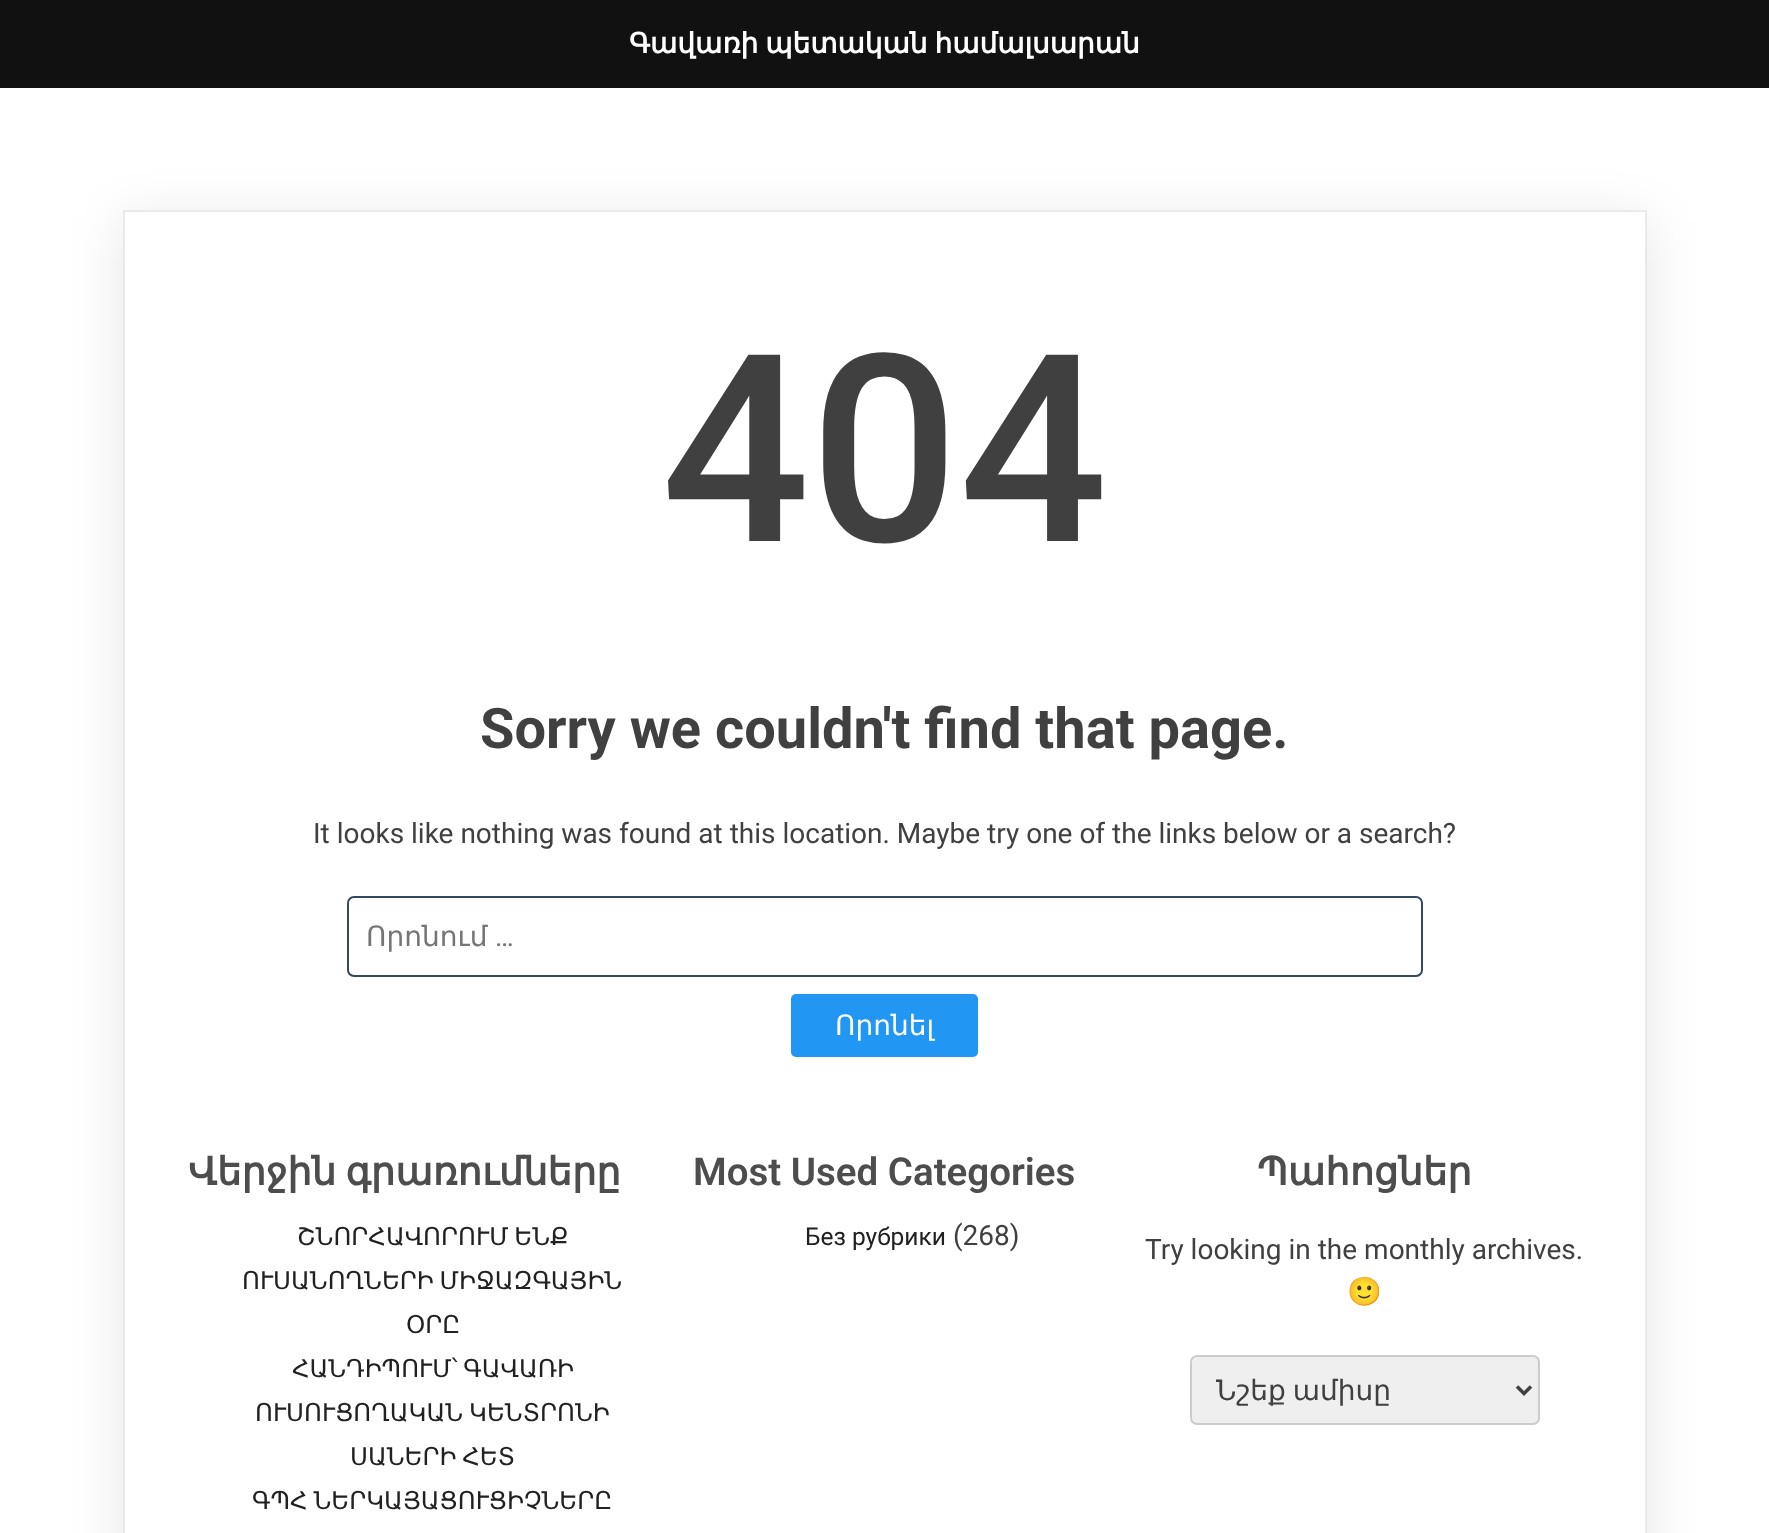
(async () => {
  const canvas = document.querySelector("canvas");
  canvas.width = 1769;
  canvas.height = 1533;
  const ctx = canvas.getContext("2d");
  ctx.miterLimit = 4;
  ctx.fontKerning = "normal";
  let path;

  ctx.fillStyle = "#ffffff";
  ctx.fillRect(0, 0, 1769, 1533);
  ctx.fillStyle = "#111111";
  ctx.fillRect(0, 0, 1769, 88);
  ctx.fillStyle = "rgba(0, 0, 0, 0.1)";
  ctx.filter = "blur(26px)";
  ctx.beginPath();
  ctx.rect(123, 219, 1524, 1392);
  ctx.fill();
  ctx.filter = "none";
  ctx.fillStyle = "#ffffff";
  ctx.beginPath();
  ctx.rect(124, 211, 1522, 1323);
  ctx.fill();
  ctx.strokeStyle = "#eaeaea";
  ctx.lineWidth = 2;
  ctx.stroke();
  ctx.beginPath();
  ctx.roundRect(348, 897, 1074, 79, 6);
  ctx.strokeStyle = "#34495e";
  ctx.stroke();
  ctx.fillStyle = "#2196f3";
  ctx.beginPath();
  ctx.roundRect(791, 994, 187, 63, 5);
  ctx.fill();
  ctx.fillStyle = "#efefef";
  ctx.beginPath();
  ctx.roundRect(1191, 1356, 348, 68, 6);
  ctx.fill();
  ctx.strokeStyle = "#cccccc";
  ctx.stroke();
  path = new Path2D("M1517 1386.5L1524 1393.5L1531 1386.5");
  ctx.strokeStyle = "#404040";
  ctx.lineWidth = 3.5;
  ctx.stroke(path);
  ctx.wordSpacing = "-2px";
  ctx.font = "bold 28px DejaVu Sans";
  ctx.fillStyle = "#ffffff";
  ctx.fillText("Գավառի պետական համալսարան", 629, 53);
  ctx.wordSpacing = "0px";
  ctx.font = "500 262px Roboto";
  ctx.fillStyle = "#404040";
  ctx.fillText("404", 661, 541);
  ctx.font = "bold 56px Roboto";
  ctx.fillText("Sorry we couldn't find that page.", 480, 748);
  ctx.font = "28px Roboto";
  ctx.fillText("It looks like nothing was found at this location. Maybe try one of the links below or a search?", 313, 843);
  ctx.font = "28px DejaVu Sans";
  ctx.fillStyle = "#757575";
  ctx.fillText("Որոնում", 366, 946);
  ctx.font = "28px Roboto";
  ctx.fillText("…", 495, 946);
  ctx.font = "28px DejaVu Sans";
  ctx.fillStyle = "#ffffff";
  ctx.fillText("Որոնել", 835, 1035);
  ctx.wordSpacing = "-3px";
  ctx.font = "bold 38.5px DejaVu Sans";
  ctx.fillStyle = "#4d4d4d";
  ctx.fillText("Վերջին գրառումները", 188, 1185);
  ctx.wordSpacing = "-2px";
  ctx.font = "24.5px DejaVu Sans";
  ctx.fillStyle = "#212121";
  ctx.fillText("ՇՆՈՐՀԱՎՈՐՈՒՄ ԵՆՔ", 297, 1245);
  ctx.fillText("ՈՒՍԱՆՈՂՆԵՐԻ ՄԻՋԱԶԳԱՅԻՆ", 242, 1289);
  ctx.wordSpacing = "0px";
  ctx.fillText("ՕՐԸ", 406, 1333);
  ctx.wordSpacing = "-2px";
  ctx.fillText("ՀԱՆԴԻՊՈՒՄ՝ ԳԱՎԱՌԻ", 292, 1377);
  ctx.wordSpacing = "0px";
  ctx.fillText("ՈՒՍՈՒՑՈՂԱԿԱՆ", 255, 1421);
  ctx.fillText("ԿԵՆՏՐՈՆԻ", 469, 1421);
  ctx.wordSpacing = "-2px";
  ctx.fillText("ՍԱՆԵՐԻ ՀԵՏ", 350, 1465);
  ctx.fillText("ԳՊՀ ՆԵՐԿԱՅԱՑՈՒՑԻՉՆԵՐԸ", 252, 1509);
  ctx.wordSpacing = "0px";
  ctx.font = "600 38.5px Roboto";
  ctx.fillStyle = "#4d4d4d";
  ctx.fillText("Most Used Categories", 693, 1185);
  ctx.font = "24.5px Roboto";
  ctx.fillStyle = "#212121";
  ctx.fillText("Без рубрики", 805, 1245);
  ctx.font = "28px Roboto";
  ctx.fillStyle = "#404040";
  ctx.fillText("(268)", 953, 1245);
  ctx.font = "bold 38.5px DejaVu Sans";
  ctx.fillStyle = "#4d4d4d";
  ctx.fillText("Պահոցներ", 1257, 1185);
  ctx.font = "28px Roboto";
  ctx.fillStyle = "#404040";
  ctx.fillText("Try looking in the monthly archives.", 1145, 1259);
  ctx.font = "28px Noto Color Emoji";
  ctx.fillText("🙂", 1347, 1301);
  ctx.save();
  ctx.beginPath();
  ctx.rect(1216, 1372, 277, 37);
  ctx.clip();
  ctx.wordSpacing = "-2px";
  ctx.font = "28px DejaVu Sans";
  ctx.fillText("Նշեք ամիսը", 1216, 1400);
  ctx.restore();
})();
